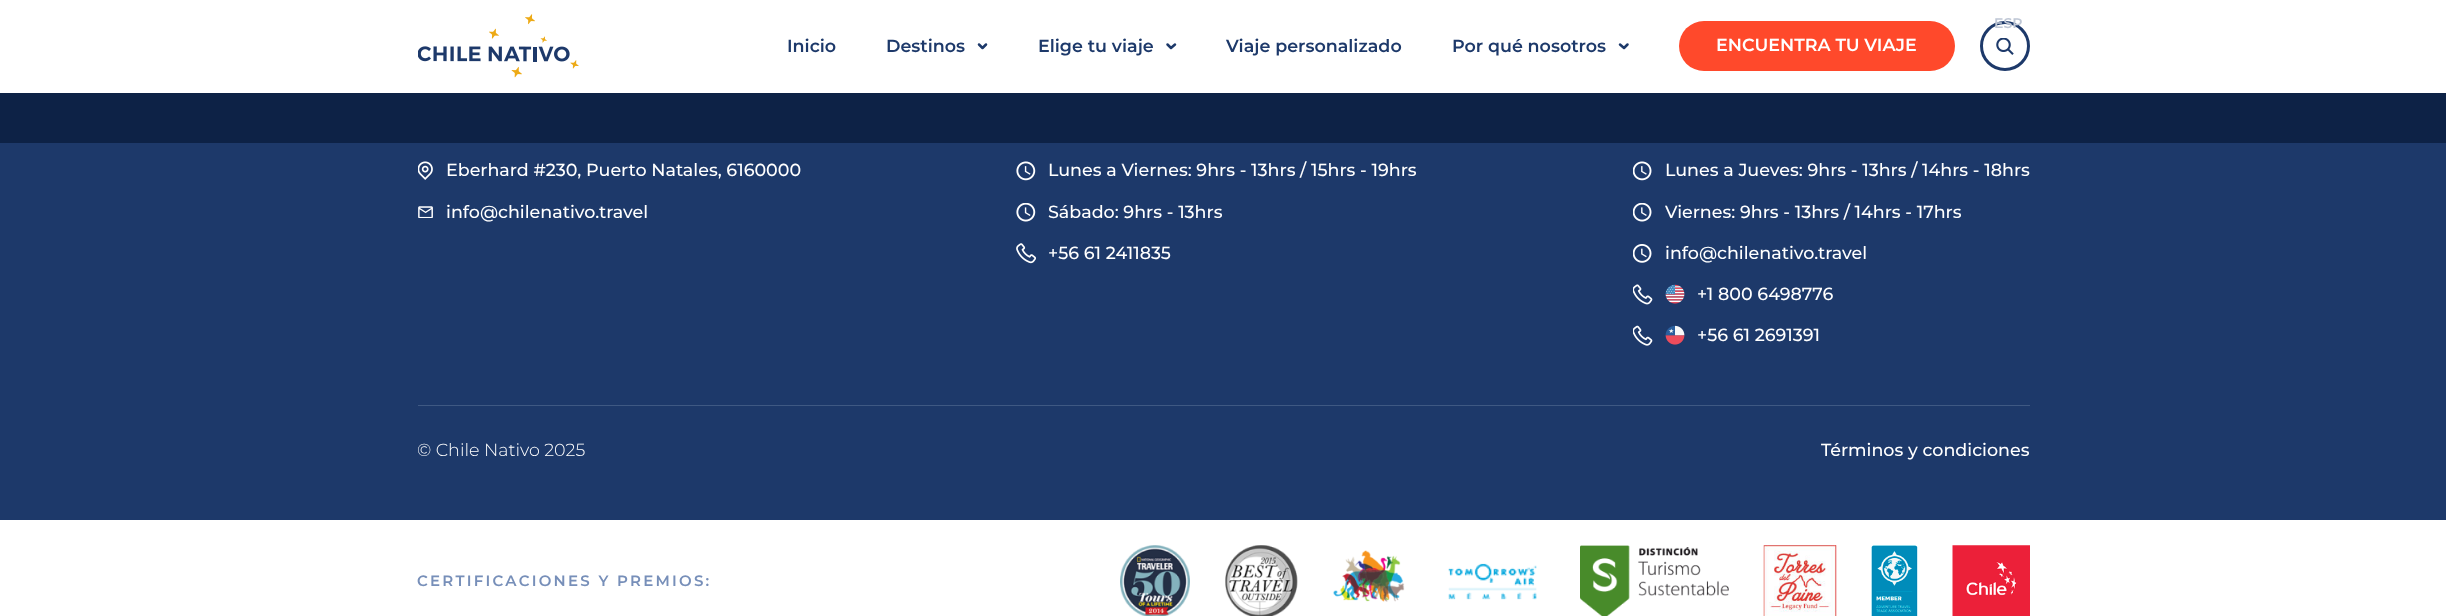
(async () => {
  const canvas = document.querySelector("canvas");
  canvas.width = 2446;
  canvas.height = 616;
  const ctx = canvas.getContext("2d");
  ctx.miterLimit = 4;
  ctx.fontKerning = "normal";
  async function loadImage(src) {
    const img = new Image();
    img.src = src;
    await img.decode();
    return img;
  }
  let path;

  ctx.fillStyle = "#1d396a";
  ctx.fillRect(0, 0, 2446, 616);
  ctx.fillStyle = "#0d2246";
  ctx.fillRect(0, 93, 2446, 50);
  ctx.fillStyle = "#ffffff";
  ctx.fillRect(0, 0, 2446, 93);
  ctx.drawImage(await loadImage("img/1.png"), 418, 14, 161, 64);
  path = new Path2D("M979 44.5L982.5 48L986 44.5");
  ctx.strokeStyle = "#1d396a";
  ctx.lineWidth = 2.5;
  ctx.lineCap = "round";
  ctx.lineJoin = "round";
  ctx.stroke(path);
  path = new Path2D("M1167.5 44.5L1171 48L1175 44.5");
  ctx.stroke(path);
  path = new Path2D("M1620 44.5L1624 48L1627.5 44.5");
  ctx.stroke(path);
  ctx.fillStyle = "#ff492b";
  ctx.beginPath();
  ctx.roundRect(1679, 21, 276, 50, 25);
  ctx.fill();
  ctx.beginPath();
  ctx.arc(2005, 46, 23.5, 0, Math.PI * 2);
  ctx.lineWidth = 3;
  ctx.stroke();
  ctx.drawImage(await loadImage("img/2.png"), 1996, 38, 18, 17);
  ctx.fillStyle = "#3f5983";
  ctx.fillRect(418, 405, 1612, 1);
  ctx.drawImage(await loadImage("img/3.png"), 418, 161, 15, 19);
  ctx.drawImage(await loadImage("img/4.png"), 418, 206, 15, 12);
  ctx.drawImage(await loadImage("img/5.png"), 1016, 161, 20, 20);
  ctx.drawImage(await loadImage("img/6.png"), 1016, 203, 20, 19);
  ctx.drawImage(await loadImage("img/7.png"), 1016, 243, 20, 21);
  ctx.drawImage(await loadImage("img/8.png"), 1633, 161, 19, 20);
  ctx.drawImage(await loadImage("img/9.png"), 1633, 203, 19, 19);
  ctx.drawImage(await loadImage("img/10.png"), 1633, 244, 19, 19);
  ctx.drawImage(await loadImage("img/11.png"), 1633, 284, 20, 21);
  ctx.drawImage(await loadImage("img/12.png"), 1665, 284, 20, 20);
  ctx.drawImage(await loadImage("img/13.png"), 1633, 325, 20, 21);
  ctx.drawImage(await loadImage("img/14.png"), 1665, 325, 20, 20);
  ctx.fillStyle = "#ffffff";
  ctx.fillRect(0, 520, 2446, 96);
  ctx.drawImage(await loadImage("img/15.png"), 1120, 545, 70, 71);
  ctx.drawImage(await loadImage("img/16.png"), 1225, 545, 73, 71);
  ctx.drawImage(await loadImage("img/17.png"), 1333, 550, 72, 52);
  ctx.drawImage(await loadImage("img/18.png"), 1448, 563, 89, 37);
  ctx.drawImage(await loadImage("img/19.png"), 1580, 545, 149, 71);
  ctx.drawImage(await loadImage("img/20.png"), 1763, 545, 74, 71);
  ctx.drawImage(await loadImage("img/21.png"), 1871, 545, 47, 71);
  ctx.drawImage(await loadImage("img/22.png"), 1952, 545, 78, 71);
  ctx.font = "600 14px Montserrat";
  ctx.fillStyle = "#bfc7d5";
  ctx.fillText("ESP", 1994, 28);
  ctx.font = "600 17.5px Montserrat";
  ctx.fillStyle = "#1d396a";
  for (const [text, x, y] of [
    ["Inicio", 787, 52],
    ["Destinos", 886, 52],
    ["Elige tu viaje", 1038, 52],
    ["Viaje personalizado", 1226, 52],
    ["Por qué nosotros", 1452, 52],
  ]) {
    ctx.fillText(text, x, y);
  }
  ctx.fillStyle = "#ffffff";
  ctx.fillText("ENCUENTRA TU VIAJE", 1716, 51);
  ctx.font = "500 17.5px Montserrat";
  for (const [text, x, y] of [
    ["Eberhard #230, Puerto Natales, 6160000", 446, 176],
    ["info@chilenativo.travel", 446, 218],
    ["Lunes a Viernes: 9hrs - 13hrs / 15hrs - 19hrs", 1048, 176],
    ["Sábado: 9hrs - 13hrs", 1048, 218],
    ["+56 61 2411835", 1048, 259],
    ["Lunes a Jueves: 9hrs - 13hrs / 14hrs - 18hrs", 1665, 176],
    ["Viernes: 9hrs - 13hrs / 14hrs - 17hrs", 1665, 218],
    ["info@chilenativo.travel", 1665, 259],
    ["+1 800 6498776", 1697, 300],
    ["+56 61 2691391", 1697, 341],
  ]) {
    ctx.fillText(text, x, y);
  }
  ctx.font = "300 17.5px Montserrat";
  ctx.fillText("© Chile Nativo 2025", 417, 456);
  ctx.font = "500 17.5px Montserrat";
  ctx.fillText("Términos y condiciones", 1821, 456);
  ctx.letterSpacing = "2.25px";
  ctx.font = "600 15px Montserrat";
  ctx.fillStyle = "#778fb9";
  ctx.fillText("CERTIFICACIONES Y PREMIOS:", 417, 586);
})();
